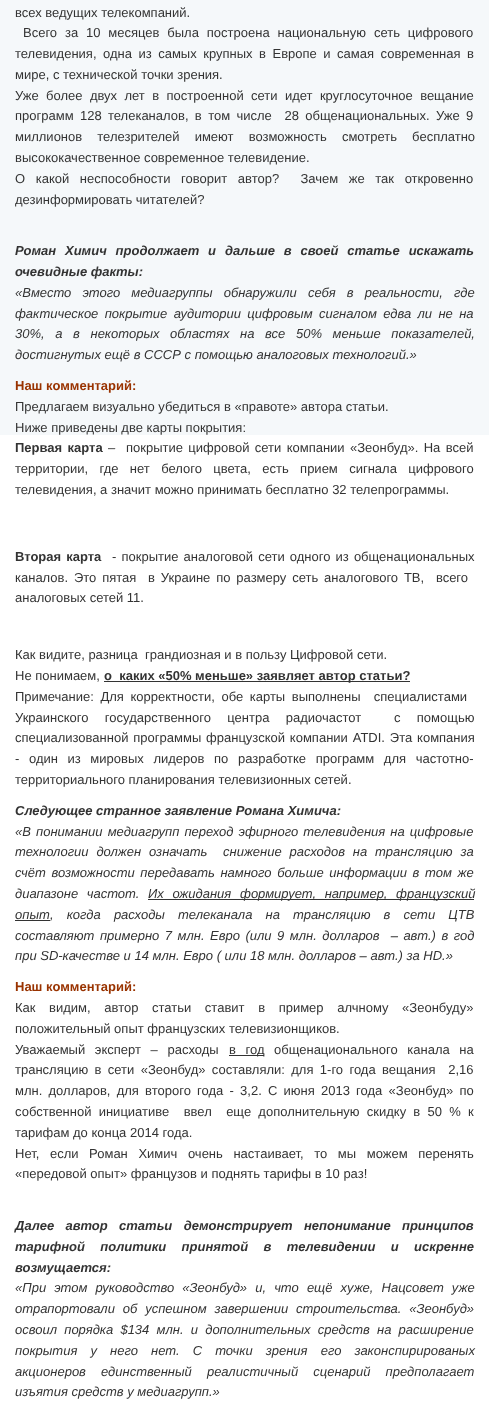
(async () => {
  const canvas = document.querySelector("canvas");
  canvas.width = 489;
  canvas.height = 1419;
  const ctx = canvas.getContext("2d");
  ctx.miterLimit = 4;
  ctx.fontKerning = "normal";

  ctx.fillStyle = "#ffffff";
  ctx.fillRect(0, 0, 489, 1419);
  for (const [x, y, w, h, color] of [
    [0, 0, 489, 435, "#f5f8fa"],
    [104, 681, 306, 1, "#333333"],
    [148, 899, 326, 1, "#333333"],
    [15, 920, 35, 1, "#333333"],
    [229, 1055, 35, 1, "#333333"],
  ]) {
    ctx.fillStyle = color;
    ctx.fillRect(x, y, w, h);
  }
  ctx.font = "13px Liberation Sans";
  ctx.fillText("всех ведущих телекомпаний.", 15, 17);
  ctx.wordSpacing = "4.25px";
  ctx.fillText("Всего за 10 месяцев была построена национальную сеть цифрового", 23, 37);
  ctx.wordSpacing = "2.9px";
  ctx.fillText("телевидения, одна из самых крупных в Европе и самая современная в", 15, 58);
  ctx.wordSpacing = "0px";
  ctx.fillText("мире, с технической точки зрения.", 15, 79);
  ctx.wordSpacing = "3.75px";
  ctx.fillText("Уже более двух лет в построенной сети идет круглосуточное вещание", 15, 100);
  ctx.wordSpacing = "2.75px";
  ctx.fillText("программ 128 телеканалов, в том числе  28 общенациональных. Уже 9", 15, 120);
  ctx.wordSpacing = "11.5px";
  ctx.fillText("миллионов телезрителей имеют возможность смотреть бесплатно", 15, 141);
  ctx.wordSpacing = "0px";
  ctx.fillText("высококачественное современное телевидение.", 15, 162);
  ctx.wordSpacing = "7px";
  ctx.fillText("О какой неспособности говорит автор?  Зачем же так откровенно", 15, 183);
  ctx.wordSpacing = "0px";
  ctx.fillText("дезинформировать читателей?", 15, 204);
  ctx.wordSpacing = "5.25px";
  ctx.font = "italic bold 13px Liberation Sans";
  ctx.fillText("Роман Химич продолжает и дальше в своей статье искажать", 15, 255);
  ctx.wordSpacing = "0px";
  ctx.fillText("очевидные факты:", 15, 276);
  ctx.wordSpacing = "7.5px";
  ctx.font = "italic 13px Liberation Sans";
  ctx.fillText("«Вместо этого медиагруппы обнаружили себя в реальности, где", 15, 297);
  ctx.wordSpacing = "2.75px";
  ctx.fillText("фактическое покрытие аудитории цифровым сигналом едва ли не на", 15, 318);
  ctx.wordSpacing = "7px";
  ctx.fillText("30%, а в некоторых областях на все 50% меньше показателей,", 15, 338);
  ctx.wordSpacing = "0px";
  ctx.fillText("достигнутых ещё в СССР с помощью аналоговых технологий.»", 15, 359);
  ctx.font = "bold 13px Liberation Sans";
  ctx.fillStyle = "#993300";
  ctx.fillText("Наш комментарий:", 15, 390);
  ctx.font = "13px Liberation Sans";
  ctx.fillStyle = "#333333";
  ctx.fillText("Предлагаем визуально убедиться в «правоте» автора статьи.", 15, 411);
  ctx.fillText("Ниже приведены две карты покрытия:", 15, 432);
  ctx.wordSpacing = "1.75px";
  ctx.font = "bold 13px Liberation Sans";
  ctx.fillText("Первая карта", 15, 452);
  ctx.font = "13px Liberation Sans";
  ctx.fillText("–  покрытие цифровой сети компании «Зеонбуд». На всей", 108, 452);
  ctx.wordSpacing = "7.75px";
  ctx.fillText("территории, где нет белого цвета, есть прием сигнала цифрового", 15, 473);
  ctx.wordSpacing = "0px";
  ctx.fillText("телевидения, а значит можно принимать бесплатно 32 телепрограммы.", 15, 494);
  ctx.wordSpacing = "1.5px";
  ctx.font = "bold 13px Liberation Sans";
  ctx.fillText("Вторая карта", 15, 561);
  ctx.font = "13px Liberation Sans";
  ctx.fillText("- покрытие аналоговой сети одного из общенациональных", 112, 561);
  ctx.wordSpacing = "2.25px";
  ctx.fillText("каналов. Это пятая  в Украине по размеру сеть аналогового ТВ,  всего", 15, 582);
  ctx.wordSpacing = "0px";
  for (const [text, x, y] of [
    ["аналоговых сетей 11.", 15, 602],
    ["Как видите, разница  грандиозная и в пользу Цифровой сети.", 15, 659],
    ["Не понимаем,", 15, 680],
  ]) {
    ctx.fillText(text, x, y);
  }
  ctx.font = "bold 13px Liberation Sans";
  ctx.fillText("о  каких «50% меньше» заявляет автор статьи?", 104, 680);
  ctx.wordSpacing = "3px";
  ctx.font = "13px Liberation Sans";
  ctx.fillText("Примечание: Для корректности, обе карты выполнены  специалистами", 15, 701);
  ctx.wordSpacing = "12.75px";
  ctx.fillText("Украинского государственного центра радиочастот  с помощью", 15, 722);
  ctx.wordSpacing = "1.25px";
  ctx.fillText("специализованной программы французской компании ATDI. Эта компания", 15, 742);
  ctx.wordSpacing = "6px";
  ctx.fillText("- один из мировых лидеров по разработке программ для частотно-", 15, 763);
  ctx.wordSpacing = "0px";
  ctx.fillText("территориального планирования телевизионных сетей.", 15, 784);
  ctx.font = "italic bold 13px Liberation Sans";
  ctx.fillText("Следующее странное заявление Романа Химича:", 15, 815);
  ctx.wordSpacing = "1.5px";
  ctx.font = "italic 13px Liberation Sans";
  ctx.fillText("«В понимании медиагрупп переход эфирного телевидения на цифровые", 15, 836);
  ctx.wordSpacing = "4.25px";
  ctx.fillText("технологии должен означать  снижение расходов на трансляцию за", 15, 856);
  ctx.wordSpacing = "2px";
  ctx.fillText("счёт возможности передавать намного больше информации в том же", 15, 877);
  ctx.wordSpacing = "5px";
  ctx.fillText("диапазоне частот.", 15, 898);
  ctx.fillText("Их ожидания формирует, например, французский", 148, 898);
  ctx.wordSpacing = "0px";
  ctx.fillText("опыт", 15, 919);
  ctx.wordSpacing = "9.5px";
  ctx.fillText(", когда расходы телеканала на трансляцию в сети ЦТВ", 50, 919);
  ctx.wordSpacing = "1.9px";
  ctx.fillText("составляют примерно 7 млн. Евро (или 9 млн. долларов  – авт.) в год", 15, 940);
  ctx.wordSpacing = "0px";
  ctx.fillText("при SD-качестве и 14 млн. Евро ( или 18 млн. долларов – авт.) за HD.»", 15, 960);
  ctx.font = "bold 13px Liberation Sans";
  ctx.fillStyle = "#993300";
  ctx.fillText("Наш комментарий:", 15, 991);
  ctx.wordSpacing = "10px";
  ctx.font = "13px Liberation Sans";
  ctx.fillStyle = "#333333";
  ctx.fillText("Как видим, автор статьи ставит в пример алчному «Зеонбуду»", 15, 1012);
  ctx.wordSpacing = "0px";
  ctx.fillText("положительный опыт французских телевизионщиков.", 15, 1033);
  ctx.wordSpacing = "6px";
  for (const [text, x, y] of [
    ["Уважаемый эксперт – расходы", 15, 1054],
    ["в год", 229, 1054],
    ["общенационального канала на", 274, 1054],
  ]) {
    ctx.fillText(text, x, y);
  }
  ctx.wordSpacing = "2.75px";
  ctx.fillText("трансляцию в сети «Зеонбуд» составляли: для 1-го года вещания  2,16", 15, 1074);
  ctx.wordSpacing = "2.6px";
  ctx.fillText("млн. долларов, для второго года - 3,2. С июня 2013 года «Зеонбуд» по", 15, 1095);
  ctx.wordSpacing = "3.6px";
  ctx.fillText("собственной инициативе  ввел  еще дополнительную скидку в 50 % к", 15, 1116);
  ctx.wordSpacing = "0px";
  ctx.fillText("тарифам до конца 2014 года.", 15, 1137);
  ctx.wordSpacing = "7px";
  ctx.fillText("Нет, если Роман Химич очень настаивает, то мы можем перенять", 15, 1158);
  ctx.wordSpacing = "0px";
  ctx.fillText("«передовой опыт» французов и поднять тарифы в 10 раз!", 15, 1178);
  ctx.wordSpacing = "7.75px";
  ctx.font = "italic bold 13px Liberation Sans";
  ctx.fillText("Далее автор статьи демонстрирует непонимание принципов", 15, 1230);
  ctx.wordSpacing = "11.75px";
  ctx.fillText("тарифной политики принятой в телевидении и искренне", 15, 1251);
  ctx.wordSpacing = "0px";
  ctx.fillText("возмущается:", 15, 1272);
  ctx.wordSpacing = "4.5px";
  ctx.font = "italic 13px Liberation Sans";
  ctx.fillText("«При этом руководство «Зеонбуд» и, что ещё хуже, Нацсовет уже", 15, 1292);
  ctx.wordSpacing = "4.25px";
  ctx.fillText("отрапортовали об успешном завершении строительства. «Зеонбуд»", 15, 1313);
  ctx.wordSpacing = "3.6px";
  ctx.fillText("освоил порядка $134 млн. и дополнительных средств на расширение", 15, 1334);
  ctx.wordSpacing = "9.5px";
  ctx.fillText("покрытия у него нет. С точки зрения его законспирированых", 15, 1355);
  ctx.wordSpacing = "11.5px";
  ctx.fillText("акционеров единственный реалистичный сценарий предполагает", 15, 1376);
  ctx.wordSpacing = "0px";
  ctx.fillText("изъятия средств у медиагрупп.»", 15, 1396);
})();
